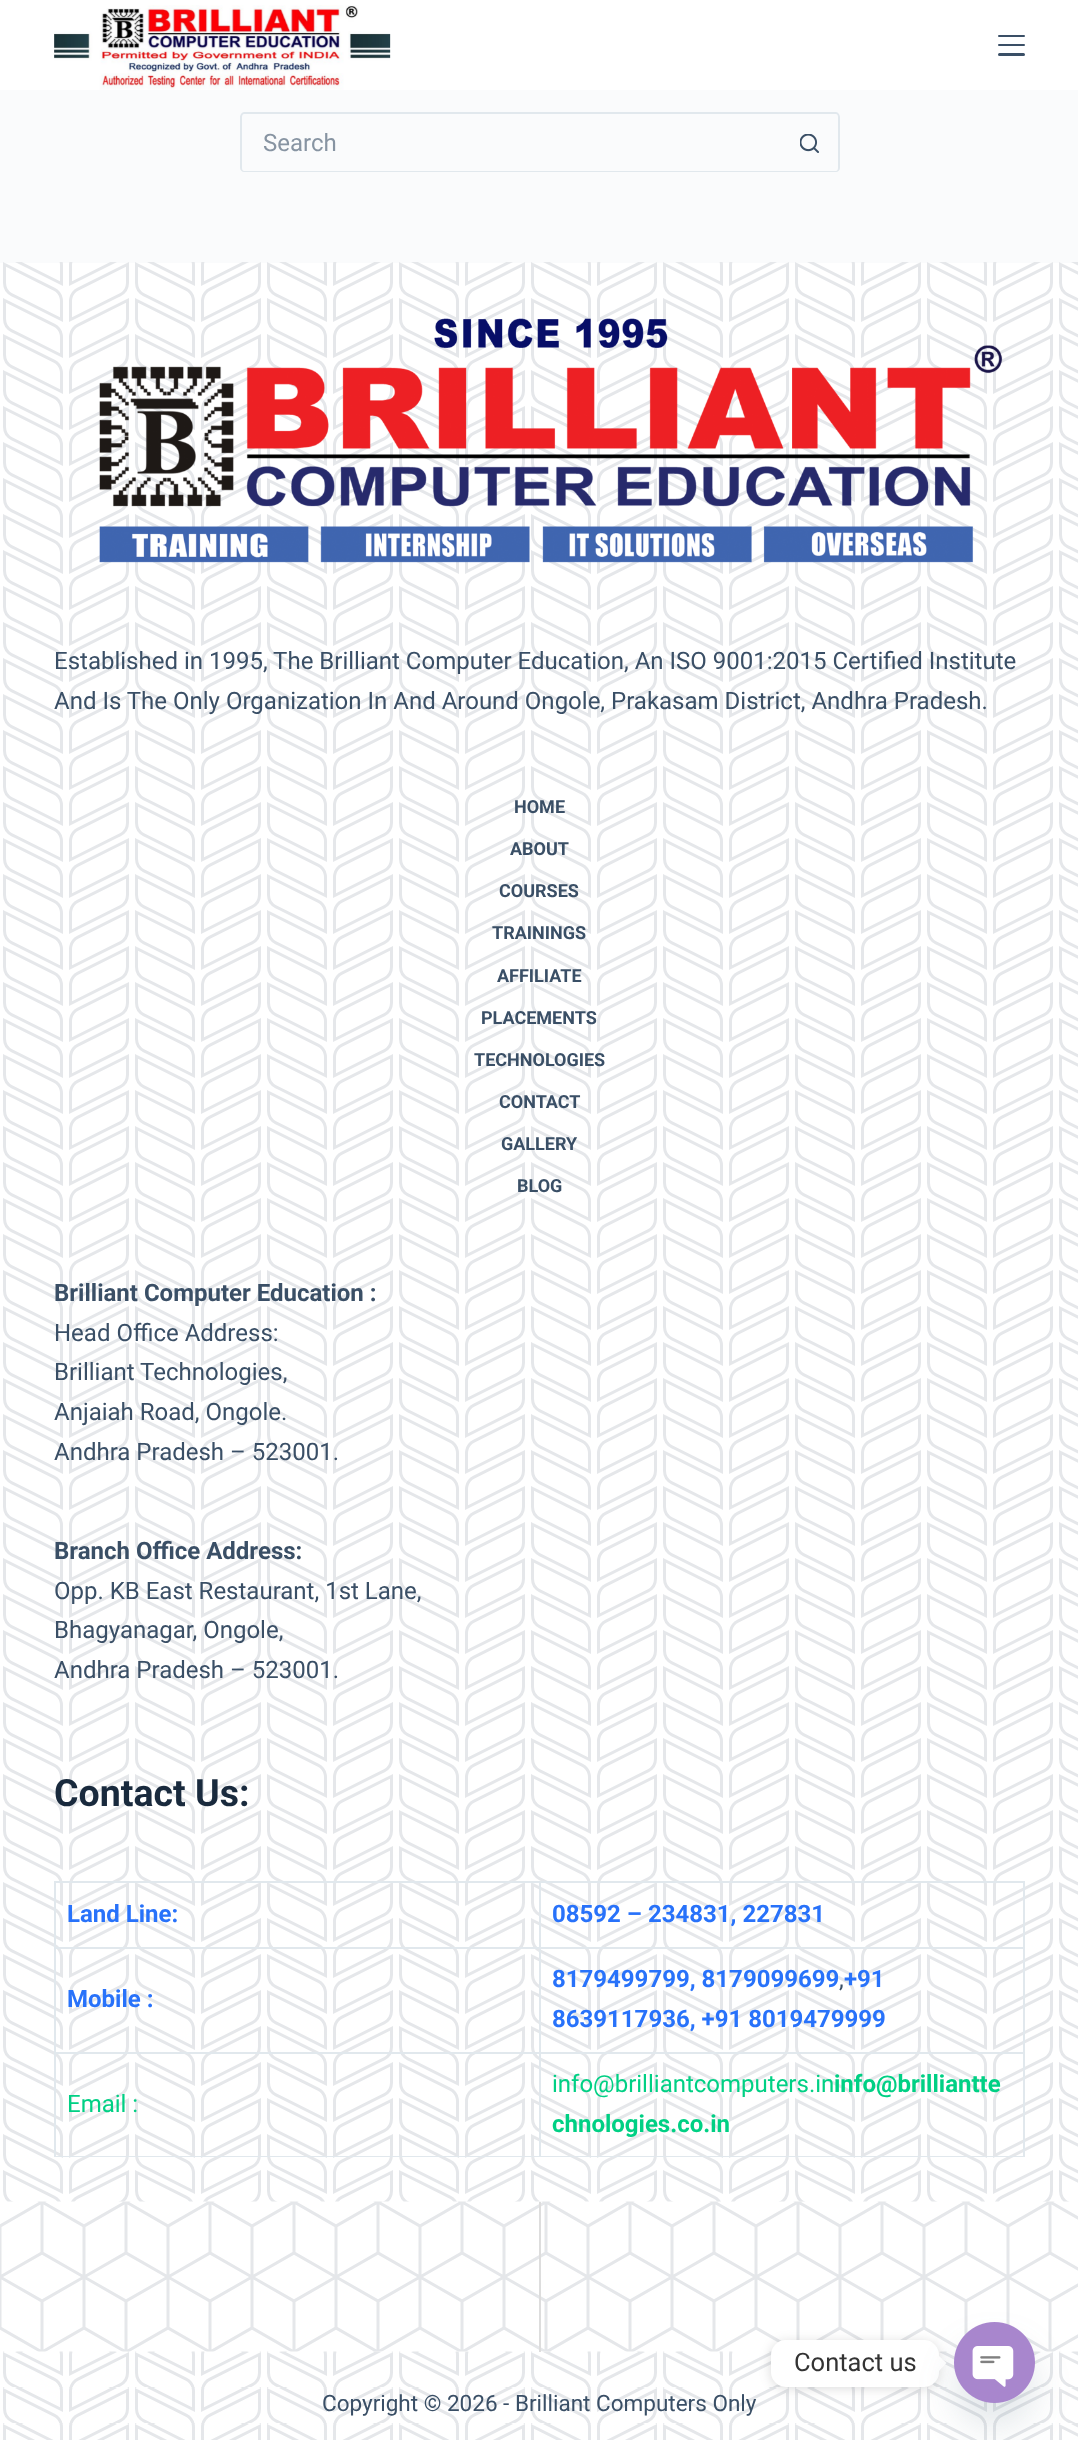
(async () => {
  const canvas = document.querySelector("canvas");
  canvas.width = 1078;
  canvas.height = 2440;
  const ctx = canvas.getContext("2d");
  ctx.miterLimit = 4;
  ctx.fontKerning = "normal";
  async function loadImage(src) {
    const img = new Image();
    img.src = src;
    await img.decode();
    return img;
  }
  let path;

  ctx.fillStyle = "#fafbfc";
  ctx.fillRect(0, 0, 1078, 2440);
  ctx.fillStyle = "#ffffff";
  ctx.fillRect(0, 0, 1078, 90);
  ctx.drawImage(await loadImage("img/1.png"), 54, 5, 337, 85);
  ctx.fillStyle = "#3a4f66";
  ctx.beginPath();
  ctx.roundRect(998, 35, 27, 2, 1);
  ctx.fill();
  ctx.beginPath();
  ctx.roundRect(998, 44, 27, 2, 1);
  ctx.fill();
  ctx.beginPath();
  ctx.roundRect(998, 53, 27, 3, 1.5);
  ctx.fill();
  ctx.fillStyle = "#e1e8ed";
  path = new Path2D("M244 112H780V172H244C242 172 240 170 240 168V117C240 115 242 112 244 112ZM244 114H780V171H244C243 171 242 170 242 168V117C242 115 243 114 244 114Z");
  ctx.fill(path, "evenodd");
  path = new Path2D("M780 112H836C838 112 840 115 840 117V168C840 170 838 172 836 172H780ZM780 114H836C837 114 838 115 838 117V168C838 170 837 171 836 171H780Z");
  ctx.fill(path, "evenodd");
  ctx.drawImage(await loadImage("img/2.png"), 800, 134, 19, 19);
  ctx.fillStyle = "#ffffff";
  ctx.fillRect(0, 263, 1078, 2177);
  ctx.drawImage(await loadImage("img/3.png"), 3, 262, 1075, 1940);
  ctx.drawImage(await loadImage("img/4.png"), 99, 318, 904, 245);
  for (const [x, y, w, h, color] of [
    [54, 1881, 971, 2, "#e1e8ed"],
    [1023, 1881, 2, 276, "#e1e8ed"],
    [54, 2156, 971, 1, "#e1e8ed"],
    [54, 1881, 2, 276, "#e1e8ed"],
    [539, 1947, 486, 2, "#e1e8ed"],
    [539, 2052, 486, 2, "#e1e8ed"],
    [539, 2052, 2, 105, "#e1e8ed"],
    [54, 2052, 486, 2, "#e1e8ed"],
    [539, 1947, 2, 107, "#e1e8ed"],
    [54, 1947, 486, 2, "#e1e8ed"],
    [539, 1881, 2, 68, "#e1e8ed"],
  ]) {
    ctx.fillStyle = color;
    ctx.fillRect(x, y, w, h);
  }
  ctx.drawImage(await loadImage("img/5.png"), 0, 2201, 1078, 151);
  ctx.drawImage(await loadImage("img/6.png"), 3, 2351, 1075, 89);
  ctx.fillStyle = "#dddddd";
  ctx.fillRect(539, 2202, 2, 150);
  ctx.fillStyle = "rgba(0, 0, 0, 0.15)";
  ctx.filter = "blur(6px)";
  ctx.beginPath();
  ctx.roundRect(771, 2342, 168, 46, 15);
  ctx.fill();
  ctx.filter = "none";
  ctx.fillStyle = "#ffffff";
  ctx.beginPath();
  ctx.roundRect(771, 2340, 168, 47, 15);
  ctx.fill();
  path = new Path2D("M939 2371V2356L946.5 2363Z");
  ctx.fill(path);
  ctx.fillStyle = "rgba(73, 104, 126, 0.16)";
  ctx.filter = "blur(18px)";
  ctx.beginPath();
  ctx.roundRect(954, 2346, 81, 81, 40.5);
  ctx.fill();
  ctx.filter = "none";
  ctx.drawImage(await loadImage("img/7.png"), 954, 2322, 81, 81);
  ctx.font = "24px Roboto";
  ctx.fillStyle = "#8794a2";
  ctx.fillText("Search", 263, 151);
  ctx.fillStyle = "#3a4f66";
  ctx.fillText("Established in 1995, The Brilliant Computer Education, An ISO 9001:2015 Certified Institute", 54, 669);
  ctx.fillText("And Is The Only Organization In And Around Ongole, Prakasam District, Andhra Pradesh.", 54, 709);
  ctx.font = "bold 18px Roboto";
  for (const [text, x, y] of [
    ["HOME", 514, 813],
    ["ABOUT", 510, 855],
    ["COURSES", 499, 897],
    ["TRAININGS", 492, 939],
    ["AFFILIATE", 497, 982],
    ["PLACEMENTS", 481, 1024],
    ["TECHNOLOGIES", 474, 1066],
    ["CONTACT", 499, 1108],
    ["GALLERY", 501, 1150],
    ["BLOG", 517, 1192],
  ]) {
    ctx.fillText(text, x, y);
  }
  ctx.font = "bold 24px Roboto";
  ctx.fillText("Brilliant Computer Education :", 54, 1301);
  ctx.font = "24px Roboto";
  for (const [text, x, y] of [
    ["Head Office Address:", 54, 1341],
    ["Brilliant Technologies,", 54, 1380],
    ["Anjaiah Road, Ongole.", 54, 1420],
    ["Andhra Pradesh – 523001.", 54, 1460],
  ]) {
    ctx.fillText(text, x, y);
  }
  ctx.font = "bold 24px Roboto";
  ctx.fillText("Branch Office Address:", 54, 1559);
  ctx.font = "24px Roboto";
  for (const [text, x, y] of [
    ["Opp. KB East Restaurant, 1st Lane,", 54, 1599],
    ["Bhagyanagar, Ongole,", 54, 1638],
    ["Andhra Pradesh – 523001.", 54, 1678],
  ]) {
    ctx.fillText(text, x, y);
  }
  ctx.font = "bold 37.5px Roboto";
  ctx.fillStyle = "#192a3d";
  ctx.fillText("Contact Us:", 54, 1806);
  ctx.font = "bold 24px Roboto";
  ctx.fillStyle = "#2872fa";
  for (const [text, x, y] of [
    ["Land Line:", 67, 1922],
    ["08592 – 234831, 227831", 552, 1922],
    ["Mobile :", 67, 2007],
    ["8179499799, 8179099699", 552, 1987],
  ]) {
    ctx.fillText(text, x, y);
  }
  ctx.font = "24px Roboto";
  ctx.fillStyle = "#3a4f66";
  ctx.fillText(",", 839, 1987);
  ctx.font = "bold 24px Roboto";
  ctx.fillStyle = "#2872fa";
  ctx.fillText("+91", 844, 1987);
  ctx.fillText("8639117936, +91 8019479999", 552, 2027);
  ctx.font = "24px Roboto";
  ctx.fillStyle = "#00d084";
  ctx.fillText("Email :", 67, 2112);
  ctx.fillText("info@brilliantcomputers.in", 552, 2092);
  ctx.font = "bold 24px Roboto";
  ctx.fillText("info@brilliantte", 834, 2092);
  ctx.fillText("chnologies.co.in", 552, 2132);
  ctx.font = "22.5px Roboto";
  ctx.fillStyle = "#3a4f66";
  ctx.fillText("Copyright © 2026 - Brilliant Computers Only", 322, 2411);
  ctx.font = "25.5px Roboto";
  ctx.fillStyle = "#333333";
  ctx.fillText("Contact us", 794, 2371);
})();
